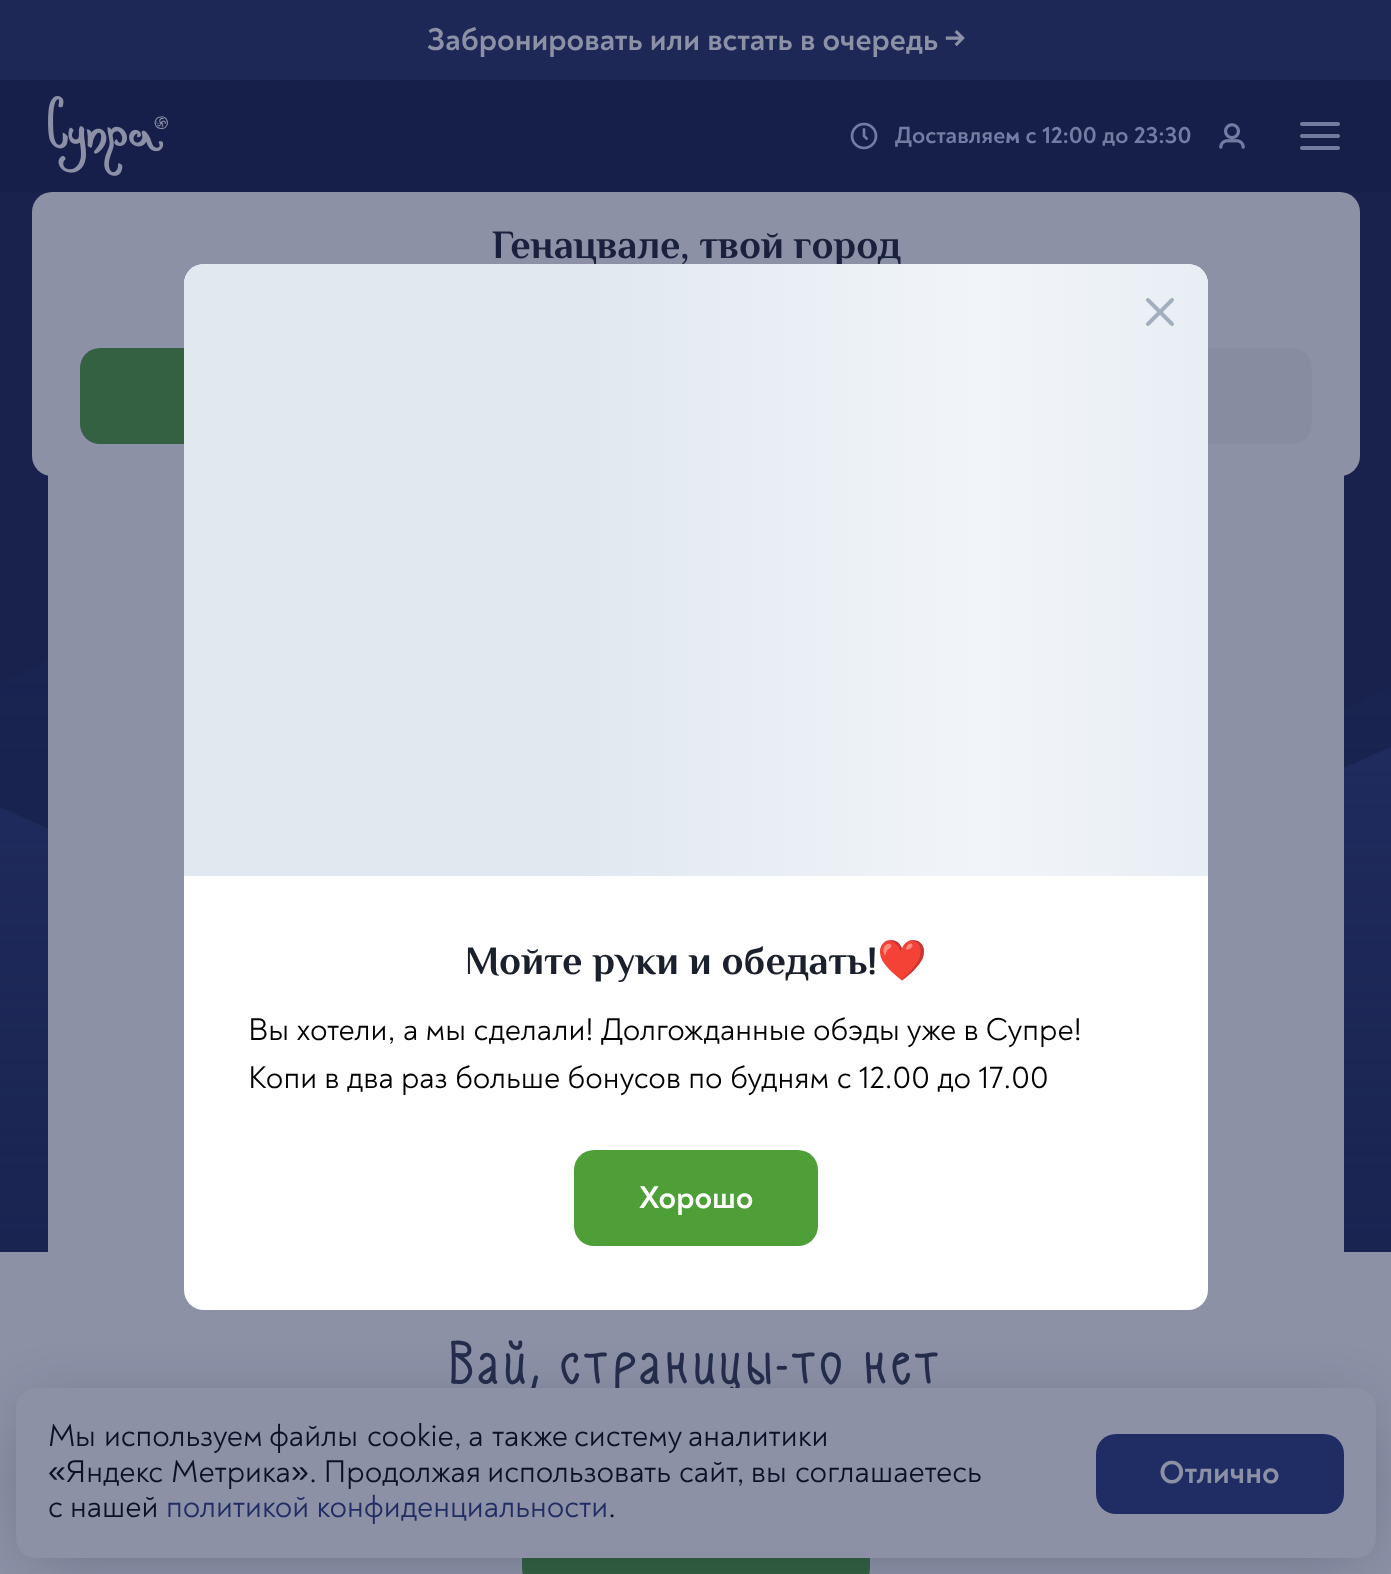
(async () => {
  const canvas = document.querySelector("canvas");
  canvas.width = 1391;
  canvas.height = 1574;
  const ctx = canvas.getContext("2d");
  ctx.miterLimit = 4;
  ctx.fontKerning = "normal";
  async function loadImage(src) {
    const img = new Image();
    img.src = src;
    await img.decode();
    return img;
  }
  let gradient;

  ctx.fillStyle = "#8c91a6";
  ctx.fillRect(0, 0, 1391, 1574);
  ctx.fillStyle = "#1d2856";
  ctx.fillRect(0, 0, 1391, 80);
  ctx.fillStyle = "#151f49";
  ctx.fillRect(0, 80, 1391, 112);
  ctx.drawImage(await loadImage("img/1.png"), 48, 96, 120, 80);
  ctx.drawImage(await loadImage("img/2.png"), 850, 122, 28, 28);
  ctx.drawImage(await loadImage("img/3.png"), 1219, 123, 26, 26);
  ctx.drawImage(await loadImage("img/4.png"), 1300, 122, 40, 28);
  ctx.fillStyle = "#18224d";
  ctx.fillRect(0, 192, 1391, 1060);
  ctx.drawImage(await loadImage("img/5.png"), 0, 660, 1391, 212);
  ctx.drawImage(await loadImage("img/6.png"), 0, 746, 1391, 506);
  ctx.fillStyle = "#8c91a6";
  ctx.fillRect(48, 475, 1296, 777);
  ctx.beginPath();
  ctx.roundRect(32, 192, 1328, 284, 20);
  ctx.fill();
  ctx.fillStyle = "#336142";
  ctx.beginPath();
  ctx.roundRect(80, 348, 600, 96, 20);
  ctx.fill();
  ctx.fillStyle = "#878ca1";
  ctx.beginPath();
  ctx.roundRect(712, 348, 600, 96, 20);
  ctx.fill();
  ctx.fillStyle = "#336142";
  ctx.beginPath();
  ctx.roundRect(522, 1496, 348, 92, 20);
  ctx.fill();
  ctx.fillStyle = "rgba(12, 17, 39, 0.3)";
  ctx.filter = "blur(32px)";
  ctx.beginPath();
  ctx.roundRect(32, 1412, 1328, 138, 4);
  ctx.fill();
  ctx.filter = "none";
  ctx.font = "bold 32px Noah";
  ctx.fillStyle = "#8c91a6";
  ctx.fillText("Забронировать или встать в очередь →", 427, 50);
  ctx.font = "bold 24px Noah";
  ctx.fillStyle = "#737ca1";
  ctx.fillText("Доставляем с 12:00 до 23:30", 895, 143);
  ctx.font = "bold 40px El Messiri";
  ctx.fillStyle = "#19213d";
  ctx.fillText("Генацвале, твой город", 492, 258);
  ctx.font = "bold 56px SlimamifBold";
  ctx.fillStyle = "#232d4b";
  ctx.fillText("Вай, страницы-то нет", 448, 1382);
  ctx.fillStyle = "#8c91a6";
  ctx.beginPath();
  ctx.roundRect(16, 1388, 1360, 170, 20);
  ctx.fill();
  ctx.font = "32px Noah";
  ctx.fillStyle = "#0c1127";
  ctx.fillText("Мы", 48, 1446);
  ctx.wordSpacing = "-1px";
  for (const [text, x, y] of [
    ["используем файлы", 104, 1446],
    ["cookie, а", 367, 1446],
    ["также систему аналитики", 492, 1446],
  ]) {
    ctx.fillText(text, x, y);
  }
  ctx.wordSpacing = "0px";
  ctx.font = "32px Liberation Sans";
  ctx.fillText("«", 48, 1482);
  ctx.font = "32px Noah";
  ctx.fillText("Яндекс", 66, 1482);
  ctx.fillText("Метрика", 171, 1482);
  ctx.font = "32px Liberation Sans";
  ctx.fillText("»", 291, 1482);
  ctx.wordSpacing = "-1px";
  ctx.font = "32px Noah";
  ctx.fillText(". Продолжая использовать", 309, 1482);
  ctx.fillText("сайт, вы", 679, 1482);
  ctx.wordSpacing = "0px";
  ctx.fillText("соглашаетесь", 795, 1482);
  ctx.fillText("с нашей", 48, 1517);
  ctx.fillStyle = "#202d64";
  ctx.fillText("политикой конфиденциальности", 166, 1517);
  ctx.fillStyle = "#0c1127";
  ctx.fillText(".", 608, 1517);
  ctx.fillStyle = "#202d64";
  ctx.beginPath();
  ctx.roundRect(1096, 1434, 248, 80, 20);
  ctx.fill();
  ctx.font = "bold 32px Noah";
  ctx.fillStyle = "#8c91a6";
  ctx.fillText("Отлично", 1159, 1483);
  ctx.fillStyle = "#ffffff";
  ctx.beginPath();
  ctx.roundRect(184, 264, 1024, 1046, 20);
  ctx.fill();
  gradient = ctx.createLinearGradient(184, 904, 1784, 904);
  gradient.addColorStop(0.25, "#e2e8f0");
  gradient.addColorStop(0.5, "#f1f5f9");
  gradient.addColorStop(0.75, "#e2e8f0");
  ctx.fillStyle = gradient;
  ctx.beginPath();
  ctx.roundRect(184, 264, 1024, 612, [20, 20, 0, 0]);
  ctx.fill();
  ctx.drawImage(await loadImage("img/7.png"), 1146, 298, 28, 28);
  ctx.font = "bold 40px El Messiri";
  ctx.fillStyle = "#1a202c";
  ctx.fillText("Мойте руки и обедать!", 465, 974);
  ctx.font = "bold 40px Noto Color Emoji";
  ctx.fillText("❤️", 877, 974);
  ctx.font = "32px Noah";
  ctx.fillStyle = "#000000";
  ctx.fillText("Вы хотели, а мы сделали! Долгожданные обэды уже в Супре!", 248, 1040);
  ctx.fillText("Копи в два раз больше бонусов по будням с 12.00 до 17.00", 248, 1088);
  ctx.fillStyle = "#4e9f37";
  ctx.beginPath();
  ctx.roundRect(574, 1150, 244, 96, 20);
  ctx.fill();
  ctx.font = "bold 32px Noah";
  ctx.fillStyle = "#ffffff";
  ctx.fillText("Хорошо", 639, 1208);
})();
